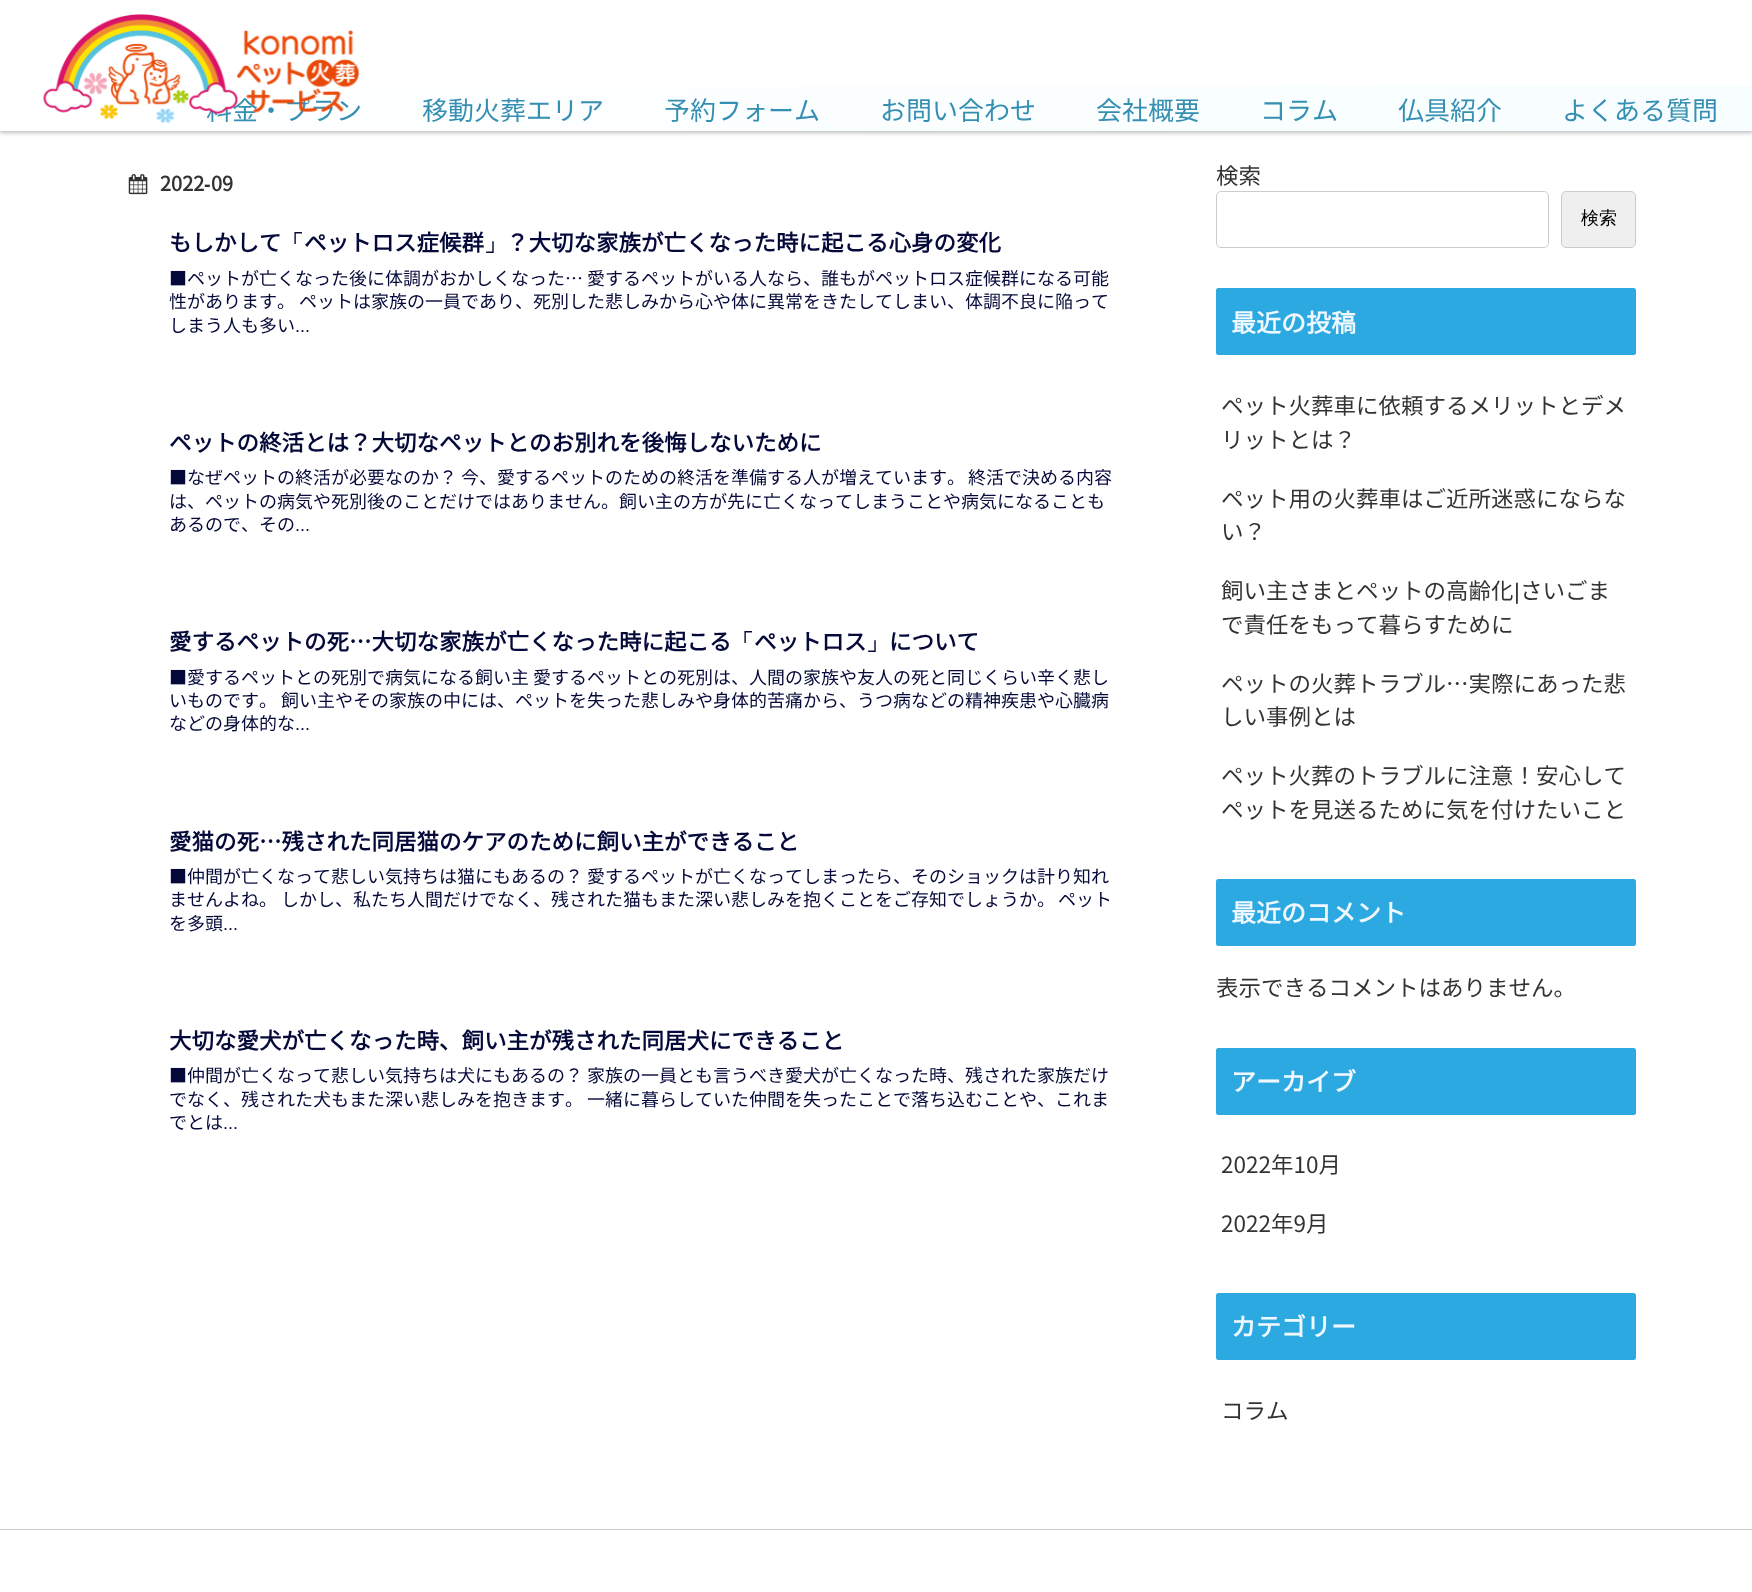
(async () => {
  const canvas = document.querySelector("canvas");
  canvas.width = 1752;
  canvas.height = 1592;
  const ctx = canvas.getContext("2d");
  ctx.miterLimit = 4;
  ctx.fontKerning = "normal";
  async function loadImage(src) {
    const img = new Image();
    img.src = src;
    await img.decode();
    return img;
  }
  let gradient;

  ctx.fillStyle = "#ffffff";
  ctx.fillRect(0, 0, 1752, 1592);
  ctx.fillStyle = "rgba(0, 0, 0, 0.25)";
  ctx.filter = "blur(2px)";
  ctx.beginPath();
  ctx.rect(0, 1, 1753, 132);
  ctx.fill();
  ctx.filter = "none";
  ctx.fillStyle = "#ffffff";
  ctx.fillRect(0, 0, 1752, 86);
  gradient = ctx.createLinearGradient(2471, 109, 0, 109);
  gradient.addColorStop(0, "#f4fdff");
  gradient.addColorStop(1, "#ffffff");
  ctx.fillStyle = gradient;
  ctx.fillRect(0, 86, 1752, 45);
  ctx.drawImage(await loadImage("img/2.png"), 128, 174, 20, 21);
  ctx.beginPath();
  ctx.roundRect(1216.5, 191.5, 332, 56, 4.5);
  ctx.strokeStyle = "#cccccc";
  ctx.stroke();
  ctx.fillStyle = "#efefef";
  ctx.beginPath();
  ctx.roundRect(1561.5, 191.5, 74, 56, 4.5);
  ctx.fill();
  ctx.stroke();
  ctx.fillStyle = "#2ca9e1";
  ctx.beginPath();
  ctx.roundRect(1216, 288, 420, 67, 2.5);
  ctx.fill();
  ctx.beginPath();
  ctx.roundRect(1216, 879, 420, 67, 2.5);
  ctx.fill();
  ctx.beginPath();
  ctx.roundRect(1216, 1048, 420, 67, 2.5);
  ctx.fill();
  ctx.beginPath();
  ctx.roundRect(1216, 1293, 420, 67, 2.5);
  ctx.fill();
  ctx.fillStyle = "#cccccc";
  ctx.fillRect(0, 1529, 1752, 1);
  ctx.font = "26px Noto Sans JP";
  ctx.fillStyle = "#358fb2";
  ctx.fillText("料金・プラン", 206, 120);
  ctx.drawImage(await loadImage("img/1.png"), 43, 14, 317, 109);
  for (const [text, x, y] of [
    ["移動火葬エリア", 422, 120],
    ["予約フォーム", 664, 120],
    ["お問い合わせ", 880, 120],
    ["会社概要", 1096, 120],
    ["コラム", 1260, 120],
    ["仏具紹介", 1398, 120],
    ["よくある質問", 1562, 120],
  ]) {
    ctx.fillText(text, x, y);
  }
  ctx.font = "bold 20px Noto Sans JP";
  ctx.fillStyle = "#333333";
  ctx.fillText("2022", 160, 191);
  ctx.font = "bold 20px Liberation Sans";
  ctx.fillText("-", 204, 191);
  ctx.font = "bold 20px Noto Sans JP";
  ctx.fillText("09", 211, 191);
  ctx.font = "bold 22.5px Noto Sans JP";
  ctx.fillStyle = "#040939";
  ctx.fillText("もしかして", 169, 251);
  ctx.font = "bold 22.5px WenQuanYi Zen Hei";
  ctx.fillText("「", 281, 251);
  ctx.font = "bold 22.5px Noto Sans JP";
  ctx.fillText("ペットロス症候群", 304, 251);
  ctx.font = "bold 22.5px WenQuanYi Zen Hei";
  ctx.fillText("」", 484, 251);
  ctx.font = "bold 22.5px Noto Sans JP";
  ctx.fillText("？大切な家族が亡くなった時に起こる心身の変化", 506, 251);
  ctx.font = "18px Noto Sans JP";
  for (const [text, x, y] of [
    ["■ペットが亡くなった後に体調がおかしくなった… 愛するペットがいる人なら、誰もがペットロス症候群になる可能", 169, 285],
    ["性があります。 ペットは家族の一員であり、死別した悲しみから心や体に異常をきたしてしまい、体調不良に陥って", 169, 308],
    ["しまう人も多い", 169, 332],
  ]) {
    ctx.fillText(text, x, y);
  }
  ctx.font = "18px Liberation Sans";
  ctx.fillText("...", 295, 332);
  ctx.font = "bold 22.5px Noto Sans JP";
  ctx.fillText("ペットの終活とは？大切なペットとのお別れを後悔しないために", 169, 451);
  ctx.font = "18px Noto Sans JP";
  for (const [text, x, y] of [
    ["■なぜペットの終活が必要なのか？ 今、愛するペットのための終活を準備する人が増えています。", 169, 484],
    ["終活で決める内容", 968, 484],
    ["は、ペットの病気や死別後のことだけではありません。飼い主の方が先に亡くなってしまうことや病気になることも", 169, 508],
    ["あるので、その", 169, 531],
  ]) {
    ctx.fillText(text, x, y);
  }
  ctx.font = "18px Liberation Sans";
  ctx.fillText("...", 295, 531);
  ctx.font = "bold 22.5px Noto Sans JP";
  ctx.fillText("愛するペットの死…大切な家族が亡くなった時に起こる", 169, 650);
  ctx.font = "bold 22.5px WenQuanYi Zen Hei";
  ctx.fillText("「", 731, 650);
  ctx.font = "bold 22.5px Noto Sans JP";
  ctx.fillText("ペットロス", 754, 650);
  ctx.font = "bold 22.5px WenQuanYi Zen Hei";
  ctx.fillText("」", 866, 650);
  ctx.font = "bold 22.5px Noto Sans JP";
  ctx.fillText("について", 889, 650);
  ctx.font = "18px Noto Sans JP";
  for (const [text, x, y] of [
    ["■愛するペットとの死別で病気になる飼い主 愛するペットとの死別は、人間の家族や友人の死と同じくらい辛く悲し", 169, 684],
    ["いものです。 飼い主やその家族の中には、ペットを失った悲しみや身体的苦痛から、うつ病などの精神疾患や心臓病", 169, 707],
    ["などの身体的な", 169, 730],
  ]) {
    ctx.fillText(text, x, y);
  }
  ctx.font = "18px Liberation Sans";
  ctx.fillText("...", 295, 730);
  ctx.font = "bold 22.5px Noto Sans JP";
  ctx.fillText("愛猫の死…残された同居猫のケアのために飼い主ができること", 169, 850);
  ctx.font = "18px Noto Sans JP";
  for (const [text, x, y] of [
    ["■仲間が亡くなって悲しい気持ちは猫にもあるの？ 愛するペットが亡くなってしまったら、そのショックは計り知れ", 169, 883],
    ["ませんよね。 しかし、私たち人間だけでなく、残された猫もまた深い悲しみを抱くことをご存知でしょうか。", 169, 906],
    ["ペット", 1058, 906],
    ["を多頭", 169, 930],
  ]) {
    ctx.fillText(text, x, y);
  }
  ctx.font = "18px Liberation Sans";
  ctx.fillText("...", 223, 930);
  ctx.font = "bold 22.5px Noto Sans JP";
  ctx.fillText("大切な愛犬が亡くなった時、飼い主が残された同居犬にできること", 169, 1049);
  ctx.font = "18px Noto Sans JP";
  for (const [text, x, y] of [
    ["■仲間が亡くなって悲しい気持ちは犬にもあるの？ 家族の一員とも言うべき愛犬が亡くなった時、残された家族だけ", 169, 1082],
    ["でなく、残された犬もまた深い悲しみを抱きます。 一緒に暮らしていた仲間を失ったことで落ち込むことや、これま", 169, 1106],
    ["でとは", 169, 1129],
  ]) {
    ctx.fillText(text, x, y);
  }
  ctx.font = "18px Liberation Sans";
  ctx.fillText("...", 223, 1129);
  ctx.font = "22.5px Noto Sans JP";
  ctx.fillStyle = "#333333";
  ctx.fillText("検索", 1216, 184);
  ctx.font = "500 18px WenQuanYi Zen Hei";
  ctx.fillStyle = "#000000";
  ctx.fillText("検索", 1581, 224);
  ctx.font = "bold 25px Noto Sans JP";
  ctx.fillStyle = "#f0f8ff";
  ctx.fillText("最近の投稿", 1231, 332);
  ctx.font = "22.5px Noto Sans JP";
  ctx.fillStyle = "#333333";
  for (const [text, x, y] of [
    ["ペット火葬車に依頼するメリットとデメ", 1221, 414],
    ["リットとは？", 1221, 448],
    ["ペット用の火葬車はご近所迷惑にならな", 1221, 507],
    ["い？", 1221, 540],
    ["飼い主さまとペットの高齢化", 1221, 599],
  ]) {
    ctx.fillText(text, x, y);
  }
  ctx.font = "22.5px Liberation Sans";
  ctx.fillText("|", 1514, 599);
  ctx.font = "22.5px Noto Sans JP";
  for (const [text, x, y] of [
    ["さいごま", 1520, 599],
    ["で責任をもって暮らすために", 1221, 633],
    ["ペットの火葬トラブル…実際にあった悲", 1221, 692],
    ["しい事例とは", 1221, 725],
    ["ペット火葬のトラブルに注意！安心して", 1221, 784],
    ["ペットを見送るために気を付けたいこと", 1221, 818],
  ]) {
    ctx.fillText(text, x, y);
  }
  ctx.font = "bold 25px Noto Sans JP";
  ctx.fillStyle = "#f0f8ff";
  ctx.fillText("最近のコメント", 1231, 922);
  ctx.font = "22.5px Noto Sans JP";
  ctx.fillStyle = "#333333";
  ctx.fillText("表示できるコメントはありません。", 1216, 996);
  ctx.font = "bold 25px Noto Sans JP";
  ctx.fillStyle = "#f0f8ff";
  ctx.fillText("アーカイブ", 1231, 1091);
  ctx.font = "22.5px Noto Sans JP";
  ctx.fillStyle = "#333333";
  ctx.fillText("2022年10月", 1221, 1173);
  ctx.fillText("2022年9月", 1221, 1232);
  ctx.font = "bold 25px Noto Sans JP";
  ctx.fillStyle = "#f0f8ff";
  ctx.fillText("カテゴリー", 1231, 1336);
  ctx.font = "22.5px Noto Sans JP";
  ctx.fillStyle = "#333333";
  ctx.fillText("コラム", 1221, 1419);
})();
